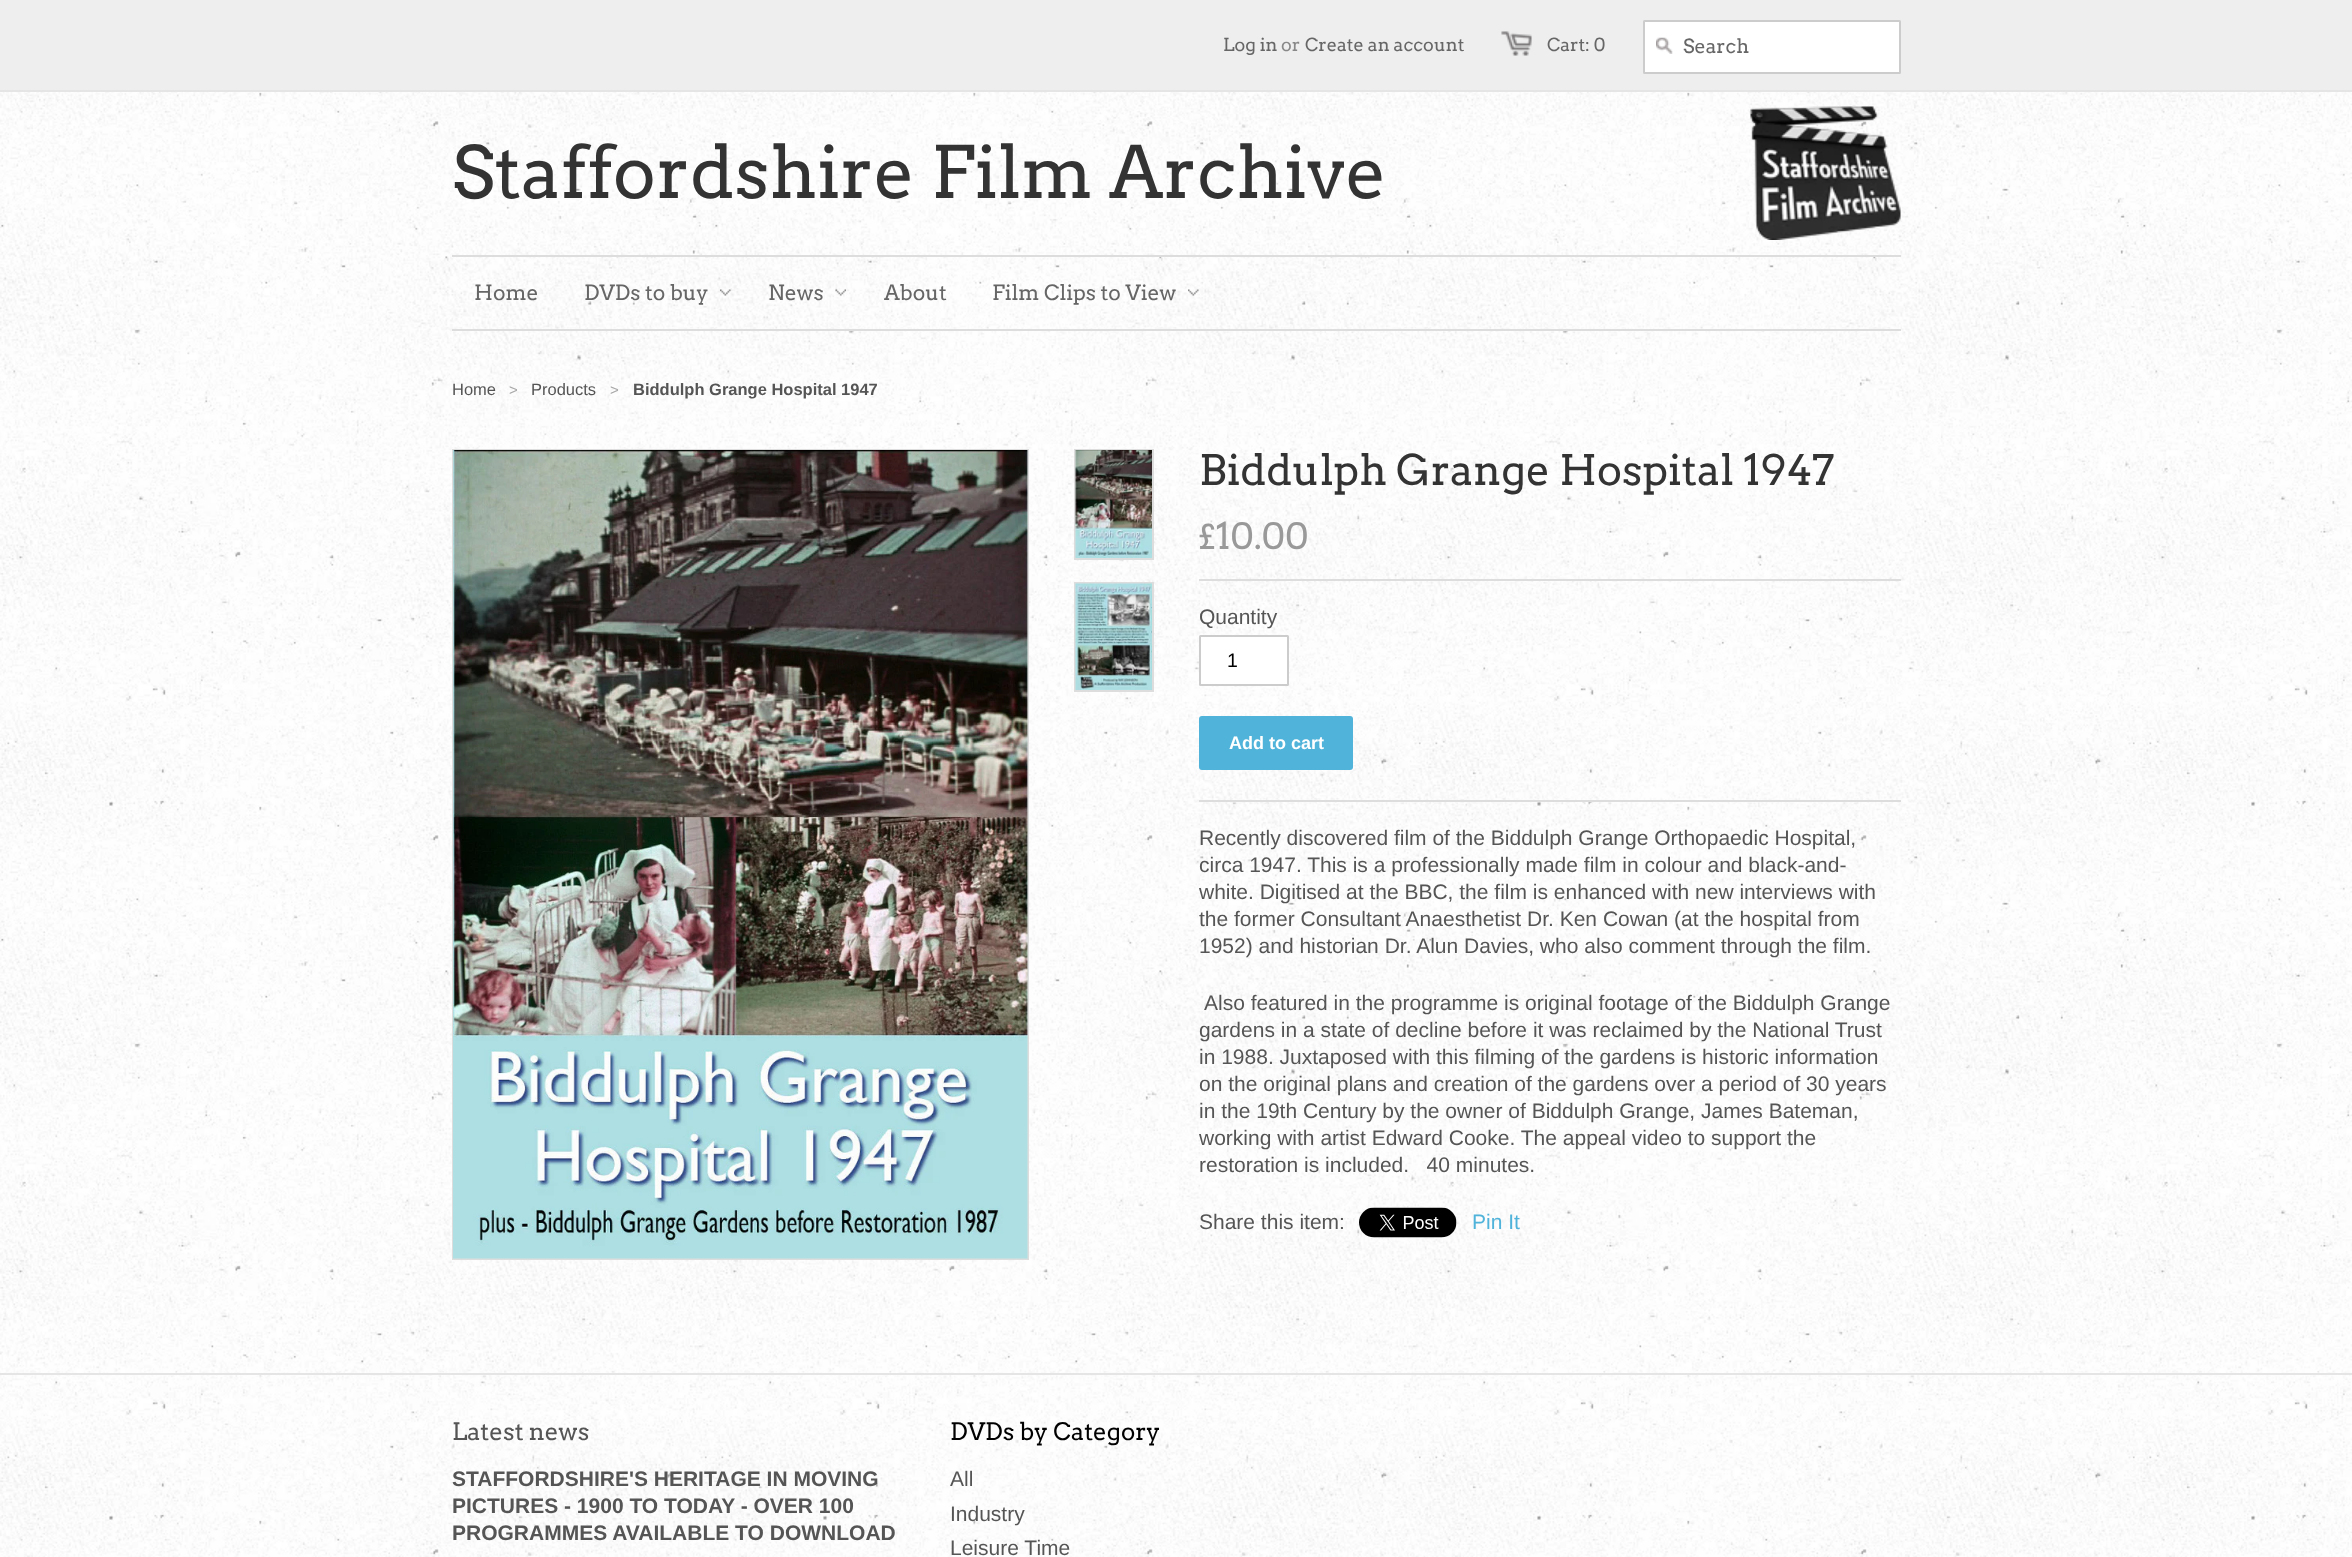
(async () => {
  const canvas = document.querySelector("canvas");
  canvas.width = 2352;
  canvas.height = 1557;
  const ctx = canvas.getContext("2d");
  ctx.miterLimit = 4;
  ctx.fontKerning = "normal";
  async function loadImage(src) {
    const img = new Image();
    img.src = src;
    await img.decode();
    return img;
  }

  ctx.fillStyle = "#ffffff";
  ctx.fillRect(0, 0, 2352, 1557);
  ctx.drawImage(await loadImage("img/1.png"), 0, 92, 2352, 1465);
  ctx.fillStyle = "#eeeeee";
  ctx.fillRect(0, 0, 2352, 90);
  ctx.fillStyle = "#e5e5e5";
  ctx.fillRect(0, 90, 2352, 2);
  ctx.drawImage(await loadImage("img/2.png"), 1501, 31, 31, 25);
  ctx.fillStyle = "#ffffff";
  ctx.beginPath();
  ctx.roundRect(1644, 21, 256, 52, 0.5);
  ctx.fill();
  ctx.strokeStyle = "#cccccc";
  ctx.lineWidth = 2;
  ctx.stroke();
  ctx.drawImage(await loadImage("img/3.png"), 1656, 37, 17, 17);
  ctx.drawImage(await loadImage("img/4.png"), 1750, 106, 151, 134);
  ctx.fillStyle = "#dddddd";
  ctx.fillRect(452, 255, 1449, 2);
  ctx.fillRect(452, 329, 1449, 2);
  ctx.drawImage(await loadImage("img/5.png"), 720, 289, 11, 7);
  ctx.drawImage(await loadImage("img/6.png"), 835, 289, 11, 7);
  ctx.drawImage(await loadImage("img/7.png"), 1188, 289, 11, 7);
  ctx.strokeStyle = "#dddddd";
  ctx.strokeRect(453, 450, 575, 809);
  ctx.drawImage(await loadImage("img/8.png"), 453, 450, 575, 809);
  ctx.strokeRect(1075, 450, 78, 109);
  ctx.drawImage(await loadImage("img/9.png"), 1075, 450, 77, 108);
  ctx.strokeRect(1075, 583, 78, 108);
  ctx.drawImage(await loadImage("img/10.png"), 1075, 583, 77, 107);
  ctx.fillRect(1199, 579, 702, 2);
  ctx.fillRect(1199, 800, 702, 2);
  ctx.fillStyle = "#ffffff";
  ctx.beginPath();
  ctx.roundRect(1200, 636, 88, 49, 0.5);
  ctx.fill();
  ctx.strokeStyle = "#cccccc";
  ctx.stroke();
  ctx.fillStyle = "#50b3da";
  ctx.beginPath();
  ctx.roundRect(1199, 716, 154, 54, 3);
  ctx.fill();
  ctx.drawImage(await loadImage("img/11.png"), 1359, 1207, 98, 31);
  ctx.fillStyle = "#e5e5e5";
  ctx.fillRect(0, 1373, 2352, 2);
  ctx.font = "18px Arvo";
  ctx.fillStyle = "#666666";
  ctx.fillText("Log in", 1223, 51);
  ctx.fillStyle = "#888888";
  ctx.fillText("or", 1281, 51);
  ctx.fillStyle = "#666666";
  ctx.fillText("Create an account", 1305, 51);
  ctx.fillText("Cart: 0", 1547, 51);
  ctx.font = "19.5px Arvo";
  ctx.fillText("Search", 1683, 53);
  ctx.font = "72px Arvo";
  ctx.fillStyle = "#333333";
  ctx.fillText("Staffordshire Film Archive", 452, 198);
  ctx.font = "21px Arvo";
  ctx.fillStyle = "#666666";
  for (const [text, x, y] of [
    ["Home", 474, 300],
    ["DVDs to buy", 584, 300],
    ["News", 768, 300],
    ["About", 884, 300],
    ["Film Clips to View", 992, 300],
  ]) {
    ctx.fillText(text, x, y);
  }
  ctx.font = "16.5px Liberation Sans";
  ctx.fillStyle = "#555555";
  ctx.fillText("Home", 452, 395);
  ctx.font = "15px Liberation Sans";
  ctx.fillStyle = "#a8a8a8";
  ctx.fillText(">", 509, 395);
  ctx.font = "16.5px Liberation Sans";
  ctx.fillStyle = "#555555";
  ctx.fillText("Products", 531, 395);
  ctx.font = "15px Liberation Sans";
  ctx.fillStyle = "#a8a8a8";
  ctx.fillText(">", 610, 395);
  ctx.font = "bold 16.5px Liberation Sans";
  ctx.fillStyle = "#555555";
  ctx.fillText("Biddulph Grange Hospital 1947", 633, 395);
  ctx.font = "42px Arvo";
  ctx.fillStyle = "#333333";
  ctx.fillText("Biddulph Grange Hospital 1947", 1199, 485);
  ctx.font = "36px Arvo";
  ctx.fillStyle = "#999999";
  ctx.fillText("£10.00", 1199, 549);
  ctx.font = "21px Liberation Sans";
  ctx.fillStyle = "#555555";
  ctx.fillText("Quantity", 1199, 624);
  ctx.font = "19.5px Liberation Sans";
  ctx.fillStyle = "#000000";
  ctx.fillText("1", 1227, 667);
  ctx.font = "bold 18px Liberation Sans";
  ctx.fillStyle = "#ffffff";
  ctx.fillText("Add to cart", 1229, 749);
  ctx.font = "21px Liberation Sans";
  ctx.fillStyle = "#555555";
  for (const [text, x, y] of [
    ["Recently discovered film of the Biddulph Grange Orthopaedic Hospital,", 1199, 845],
    ["circa 1947. This is a professionally made film in colour and black-and-", 1199, 872],
    ["white. Digitised at the BBC, the film is enhanced with new interviews with", 1199, 899],
    ["the former Consultant Anaesthetist Dr. Ken Cowan (at the hospital from", 1199, 926],
    ["1952) and historian Dr. Alun Davies, who also comment through the film.", 1199, 953],
    ["Also featured in the programme is original footage of the Biddulph Grange", 1204, 1010],
    ["gardens in a state of decline before it was reclaimed by the National Trust", 1199, 1037],
    ["in 1988. Juxtaposed with this filming of the gardens is historic information", 1199, 1064],
    ["on the original plans and creation of the gardens over a period of 30 years", 1199, 1091],
    ["in the 19th Century by the owner of Biddulph Grange, James Bateman,", 1199, 1118],
    ["working with artist Edward Cooke. The appeal video to support the", 1199, 1145],
    ["restoration is included.   40 minutes.", 1199, 1172],
    ["Share this item:", 1199, 1229],
  ]) {
    ctx.fillText(text, x, y);
  }
  ctx.fillStyle = "#50b3da";
  ctx.fillText("Pin It", 1472, 1229);
  ctx.font = "24px Arvo";
  ctx.fillStyle = "#555555";
  ctx.fillText("Latest news", 452, 1440);
  ctx.font = "bold 21px Liberation Sans";
  for (const [text, x, y] of [
    ["STAFFORDSHIRE'S HERITAGE IN MOVING", 452, 1486],
    ["PICTURES - 1900 TO TODAY - OVER 100", 452, 1513],
    ["PROGRAMMES AVAILABLE TO DOWNLOAD", 452, 1540],
  ]) {
    ctx.fillText(text, x, y);
  }
  ctx.font = "24px Arvo";
  ctx.fillStyle = "#000000";
  ctx.fillText("DVDs by Category", 950, 1440);
  ctx.font = "21px Liberation Sans";
  ctx.fillStyle = "#555555";
  for (const [text, x, y] of [
    ["All", 950, 1486],
    ["Industry", 950, 1521],
    ["Leisure Time", 950, 1555],
  ]) {
    ctx.fillText(text, x, y);
  }
})();
